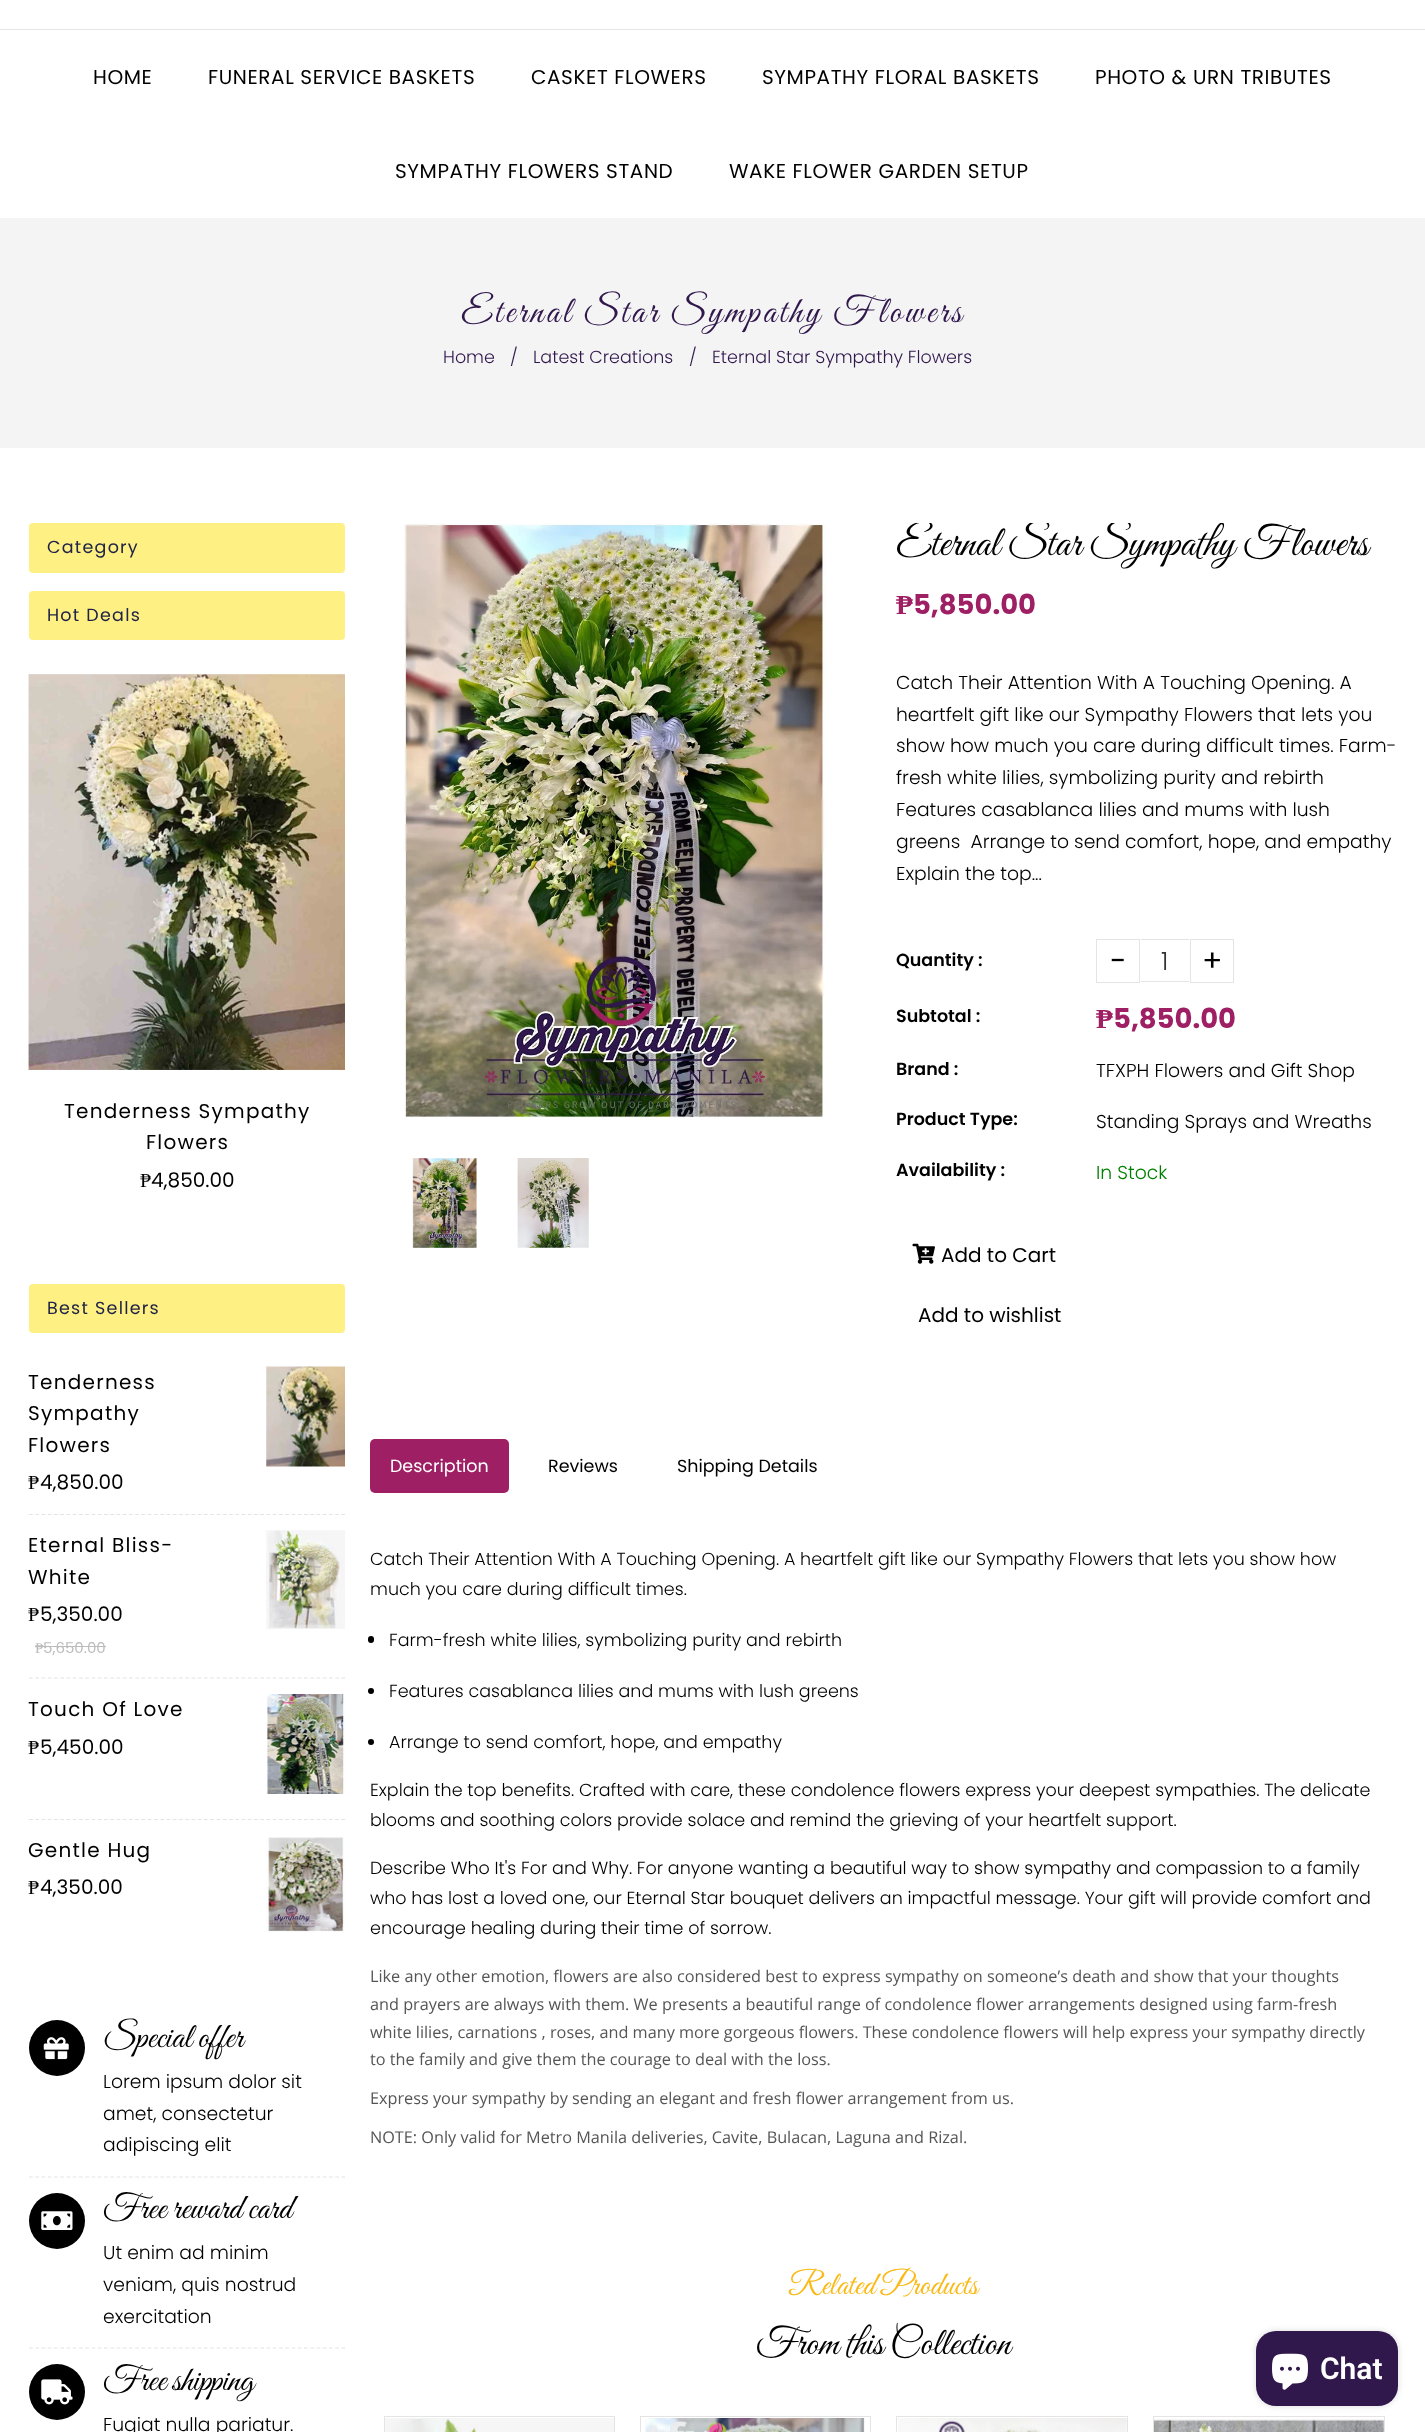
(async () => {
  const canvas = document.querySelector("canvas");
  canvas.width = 1425;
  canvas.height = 2432;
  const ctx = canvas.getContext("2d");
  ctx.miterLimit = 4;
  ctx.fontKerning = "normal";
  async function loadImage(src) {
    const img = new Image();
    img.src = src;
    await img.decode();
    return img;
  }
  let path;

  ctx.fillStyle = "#ffffff";
  ctx.fillRect(0, 0, 1425, 2432);
  ctx.fillStyle = "#e4e4e4";
  ctx.fillRect(0, 29, 1425, 1);
  ctx.fillStyle = "#f4f4f4";
  ctx.fillRect(0, 218, 1425, 230);
  ctx.fillStyle = "#fff084";
  ctx.beginPath();
  ctx.roundRect(29, 523, 316, 50, 4);
  ctx.fill();
  ctx.beginPath();
  ctx.roundRect(29, 591, 316, 49, 4);
  ctx.fill();
  ctx.drawImage(await loadImage("img/1.png"), 28, 674, 317, 397);
  ctx.fillStyle = "#ffffff";
  ctx.fillRect(29, 1070, 316, 1);
  ctx.fillStyle = "#fff084";
  ctx.beginPath();
  ctx.roundRect(29, 1284, 316, 49, 4);
  ctx.fill();
  path = new Path2D("M29 1514.5H345");
  ctx.strokeStyle = "#e4e4e4";
  ctx.lineWidth = 1.2;
  ctx.setLineDash([3.75, 2.5]);
  ctx.stroke(path);
  ctx.drawImage(await loadImage("img/2.png"), 266, 1366, 79, 101);
  path = new Path2D("M29 1678H345");
  ctx.stroke(path);
  ctx.fillStyle = "#bcbcbc";
  ctx.fillRect(35, 1646, 71, 1);
  ctx.drawImage(await loadImage("img/3.png"), 266, 1530, 79, 99);
  path = new Path2D("M29 1819.5H345");
  ctx.stroke(path);
  ctx.drawImage(await loadImage("img/4.png"), 266, 1694, 79, 100);
  ctx.drawImage(await loadImage("img/5.png"), 266, 1837, 79, 95);
  path = new Path2D("M29 2177H345");
  ctx.stroke(path);
  ctx.fillStyle = "#000000";
  ctx.beginPath();
  ctx.arc(57, 2048, 28, 0, Math.PI * 2);
  ctx.fill();
  ctx.drawImage(await loadImage("img/6.png"), 43, 2037, 26, 23);
  path = new Path2D("M29 2348H345");
  ctx.stroke(path);
  ctx.beginPath();
  ctx.arc(57, 2221, 28, 0, Math.PI * 2);
  ctx.fill();
  ctx.drawImage(await loadImage("img/7.png"), 41, 2211, 32, 19);
  ctx.beginPath();
  ctx.arc(57, 2392, 28, 0, Math.PI * 2);
  ctx.fill();
  ctx.drawImage(await loadImage("img/8.png"), 41, 2379, 32, 26);
  ctx.drawImage(await loadImage("img/9.png"), 404, 523, 423, 595);
  ctx.drawImage(await loadImage("img/10.png"), 412, 1158, 65, 90);
  ctx.drawImage(await loadImage("img/11.png"), 517, 1158, 72, 90);
  ctx.lineWidth = 1;
  ctx.setLineDash([]);
  ctx.strokeRect(1096.5, 939.5, 43, 43);
  ctx.fillStyle = "#e4e4e4";
  ctx.fillRect(1141, 939, 48, 1);
  ctx.fillRect(1141, 981, 48, 1);
  ctx.strokeRect(1190.5, 939.5, 43, 43);
  ctx.drawImage(await loadImage("img/12.png"), 912, 1243, 23, 21);
  ctx.fillStyle = "#9e1f63";
  ctx.beginPath();
  ctx.roundRect(370, 1439, 139, 54, 5);
  ctx.fill();
  ctx.fillStyle = "#000000";
  ctx.beginPath();
  ctx.roundRect(368, 1636, 6, 7, 3);
  ctx.fill();
  ctx.beginPath();
  ctx.arc(371, 1691, 3, 0, Math.PI * 2);
  ctx.fill();
  ctx.beginPath();
  ctx.arc(371, 1742, 3, 0, Math.PI * 2);
  ctx.fill();
  ctx.strokeRect(384.5, 2416.5, 230, 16);
  ctx.drawImage(await loadImage("img/13.png"), 385, 2418, 229, 14);
  ctx.strokeRect(640.5, 2416.5, 230, 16);
  ctx.drawImage(await loadImage("img/14.png"), 645, 2418, 220, 14);
  ctx.strokeRect(896.5, 2416.5, 231, 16);
  ctx.drawImage(await loadImage("img/15.png"), 898, 2418, 229, 14);
  ctx.strokeRect(1153.5, 2416.5, 231, 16);
  ctx.drawImage(await loadImage("img/16.png"), 1154, 2418, 230, 14);
  ctx.fillStyle = "rgba(0, 0, 0, 0.15)";
  ctx.filter = "blur(3px)";
  ctx.beginPath();
  ctx.roundRect(1256, 2331, 142, 75, 20);
  ctx.fill();
  ctx.filter = "none";
  ctx.fillStyle = "#30174c";
  ctx.beginPath();
  ctx.roundRect(1256, 2331, 142, 75, 20);
  ctx.fill();
  ctx.drawImage(await loadImage("img/17.png"), 1272, 2353, 36, 37);
  ctx.letterSpacing = "0.6px";
  ctx.font = "20px Poppins";
  ctx.fillStyle = "#000000";
  for (const [text, x, y] of [
    ["HOME", 93, 84],
    ["FUNERAL SERVICE BASKETS", 208, 84],
    ["CASKET FLOWERS", 531, 84],
    ["SYMPATHY FLORAL BASKETS", 762, 84],
    ["PHOTO & URN TRIBUTES", 1095, 84],
    ["SYMPATHY FLOWERS STAND", 395, 178],
    ["WAKE FLOWER GARDEN SETUP", 729, 178],
  ]) {
    ctx.fillText(text, x, y);
  }
  ctx.letterSpacing = "3px";
  ctx.font = "37.5px Great Vibes";
  ctx.fillStyle = "#30174c";
  ctx.fillText("Eternal Star Sympathy Flowers", 461, 322);
  ctx.letterSpacing = "0px";
  ctx.font = "300 17.5px Poppins";
  for (const [text, x, y] of [
    ["Home", 443, 363],
    ["/", 510, 363],
    ["Latest Creations", 533, 363],
    ["/", 689, 363],
    ["Eternal Star Sympathy Flowers", 712, 363],
  ]) {
    ctx.fillText(text, x, y);
  }
  ctx.letterSpacing = "1.25px";
  ctx.font = "17.5px Poppins";
  ctx.fillStyle = "#202447";
  ctx.fillText("Category", 47, 553);
  ctx.fillText("Hot Deals", 47, 621);
  ctx.font = "20px Poppins";
  ctx.fillStyle = "#000000";
  ctx.fillText("Tenderness Sympathy", 64, 1118);
  ctx.fillText("Flowers", 146, 1149);
  ctx.letterSpacing = "0px";
  ctx.font = "20px Liberation Serif";
  ctx.fillText("₱", 140, 1187);
  ctx.font = "20px Poppins";
  ctx.fillText("4,850.00", 151, 1187);
  ctx.letterSpacing = "1.25px";
  ctx.font = "17.5px Poppins";
  ctx.fillStyle = "#202447";
  ctx.fillText("Best Sellers", 47, 1314);
  ctx.font = "20px Poppins";
  ctx.fillStyle = "#000000";
  for (const [text, x, y] of [
    ["Tenderness", 28, 1389],
    ["Sympathy", 28, 1420],
    ["Flowers", 28, 1452],
  ]) {
    ctx.fillText(text, x, y);
  }
  ctx.letterSpacing = "0px";
  ctx.font = "20px Liberation Serif";
  ctx.fillText("₱", 28, 1489);
  ctx.font = "20px Poppins";
  ctx.fillText("4,850.00", 40, 1489);
  ctx.letterSpacing = "1.25px";
  ctx.fillText("Eternal Bliss-", 28, 1552);
  ctx.fillText("White", 28, 1584);
  ctx.letterSpacing = "0px";
  ctx.font = "20px Liberation Serif";
  ctx.fillText("₱", 28, 1621);
  ctx.font = "20px Poppins";
  ctx.fillText("5,350.00", 40, 1621);
  ctx.font = "15px Liberation Serif";
  ctx.fillStyle = "#bcbcbc";
  ctx.fillText("₱", 35, 1653);
  ctx.font = "15px Poppins";
  ctx.fillText("5,650.00", 43, 1653);
  ctx.letterSpacing = "1.25px";
  ctx.font = "20px Poppins";
  ctx.fillStyle = "#000000";
  ctx.fillText("Touch Of Love", 28, 1716);
  ctx.letterSpacing = "0px";
  ctx.font = "20px Liberation Serif";
  ctx.fillText("₱", 28, 1754);
  ctx.font = "20px Poppins";
  ctx.fillText("5,450.00", 40, 1754);
  ctx.letterSpacing = "1.25px";
  ctx.fillText("Gentle Hug", 28, 1857);
  ctx.letterSpacing = "0px";
  ctx.font = "20px Liberation Serif";
  ctx.fillText("₱", 28, 1894);
  ctx.font = "20px Poppins";
  ctx.fillText("4,350.00", 40, 1894);
  ctx.font = "35px Great Vibes";
  ctx.fillText("Special offer", 103, 2047);
  ctx.font = "300 18.75px Poppins";
  for (const [text, x, y] of [
    ["Lorem ipsum dolor sit", 103, 2088],
    ["amet, consectetur", 103, 2120],
    ["adipiscing elit", 103, 2151],
  ]) {
    ctx.fillText(text, x, y);
  }
  ctx.font = "35px Great Vibes";
  ctx.fillText("Free reward card", 103, 2218);
  ctx.font = "300 18.75px Poppins";
  for (const [text, x, y] of [
    ["Ut enim ad minim", 103, 2259],
    ["veniam, quis nostrud", 103, 2291],
    ["exercitation", 103, 2323],
  ]) {
    ctx.fillText(text, x, y);
  }
  ctx.font = "35px Great Vibes";
  ctx.fillText("Free shipping", 103, 2390);
  ctx.font = "300 18.75px Poppins";
  ctx.fillText("Fugiat nulla pariatur.", 103, 2431);
  ctx.save();
  ctx.beginPath();
  ctx.rect(0, 523, 1425, 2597);
  ctx.clip();
  ctx.font = "42.5px Great Vibes";
  ctx.fillText("Eternal Star Sympathy Flowers", 896, 555);
  ctx.restore();
  ctx.font = "bold 27.5px Liberation Serif";
  ctx.fillStyle = "#9e1f63";
  ctx.fillText("₱", 896, 614);
  ctx.font = "bold 27.5px Poppins";
  ctx.fillText("5,850.00", 913, 614);
  ctx.font = "300 18.75px Poppins";
  ctx.fillStyle = "#000000";
  for (const [text, x, y] of [
    ["Catch Their Attention With A Touching Opening. A", 896, 689],
    ["heartfelt gift like our Sympathy Flowers that lets you", 896, 721],
    ["show how much you care during difficult times. Farm-", 896, 752],
    ["fresh white lilies, symbolizing purity and rebirth", 896, 784],
    ["Features casablanca lilies and mums with lush", 896, 816],
    ["greens  Arrange to send comfort, hope, and empathy", 896, 848],
    ["Explain the top...", 896, 880],
  ]) {
    ctx.fillText(text, x, y);
  }
  ctx.font = "600 17.5px Poppins";
  ctx.fillText("Quantity :", 896, 966);
  ctx.font = "30px Poppins";
  ctx.fillText("-", 1110, 971);
  ctx.font = "300 25px Poppins";
  ctx.fillStyle = "#333333";
  ctx.fillText("1", 1161, 970);
  ctx.font = "30px Poppins";
  ctx.fillStyle = "#000000";
  ctx.fillText("+", 1202, 971);
  ctx.font = "600 17.5px Poppins";
  ctx.fillText("Subtotal :", 896, 1022);
  ctx.font = "bold 27.5px Liberation Serif";
  ctx.fillStyle = "#9e1f63";
  ctx.fillText("₱", 1096, 1028);
  ctx.font = "bold 27.5px Poppins";
  ctx.fillText("5,850.00", 1113, 1028);
  ctx.font = "600 17.5px Poppins";
  ctx.fillStyle = "#000000";
  ctx.fillText("Brand :", 896, 1075);
  ctx.font = "300 18.75px Poppins";
  ctx.fillText("TFXPH Flowers and Gift Shop", 1096, 1077);
  ctx.font = "600 17.5px Poppins";
  ctx.fillText("Product Type:", 896, 1125);
  ctx.font = "300 18.75px Poppins";
  ctx.fillText("Standing Sprays and Wreaths", 1096, 1128);
  ctx.font = "600 17.5px Poppins";
  ctx.fillText("Availability :", 896, 1176);
  ctx.font = "300 18.75px Poppins";
  ctx.fillStyle = "#008000";
  ctx.fillText("In Stock", 1096, 1179);
  ctx.font = "20px Poppins";
  ctx.fillStyle = "#000000";
  ctx.fillText("Add to Cart", 941, 1262);
  ctx.fillText("Add to wishlist", 918, 1322);
  ctx.font = "17.5px Poppins";
  ctx.fillStyle = "#ffffff";
  ctx.fillText("Description", 390, 1472);
  ctx.fillStyle = "#000000";
  ctx.fillText("Reviews", 548, 1472);
  ctx.fillText("Shipping Details", 677, 1472);
  ctx.font = "300 17.5px Poppins";
  for (const [text, x, y] of [
    ["Catch Their Attention With A Touching Opening. A heartfelt gift like our Sympathy Flowers that lets you show how", 370, 1565],
    ["much you care during difficult times.", 370, 1595],
    ["Farm-fresh white lilies, symbolizing purity and rebirth", 389, 1646],
    ["Features casablanca lilies and mums with lush greens", 389, 1697],
    ["Arrange to send comfort, hope, and empathy", 389, 1748],
    ["Explain the top benefits. Crafted with care, these condolence flowers express your deepest sympathies. The delicate", 370, 1796],
    ["blooms and soothing colors provide solace and remind the grieving of your heartfelt support.", 370, 1826],
    ["Describe Who It's For and Why. For anyone wanting a beautiful way to show sympathy and compassion to a family", 370, 1874],
    ["who has lost a loved one, our Eternal Star bouquet delivers an impactful message. Your gift will provide comfort and", 370, 1904],
    ["encourage healing during their time of sorrow.", 370, 1934],
  ]) {
    ctx.fillText(text, x, y);
  }
  ctx.font = "16.25px Open Sans";
  ctx.fillStyle = "#555555";
  for (const [text, x, y] of [
    ["Like any other emotion, flowers are also considered best to express sympathy on someone’s death and show that your thoughts", 370, 1982],
    ["and prayers are always with them. We presents a beautiful range of condolence flower arrangements designed using farm-fresh", 370, 2010],
    ["white lilies, carnations , roses, and many more gorgeous flowers. These condolence flowers will help express your sympathy directly", 370, 2038],
    ["to the family and give them the courage to deal with the loss.", 370, 2065],
    ["Express your sympathy by sending an elegant and fresh flower arrangement from us.", 370, 2104],
    ["NOTE: Only valid for Metro Manila deliveries, Cavite, Bulacan, Laguna and Rizal.", 370, 2143],
  ]) {
    ctx.fillText(text, x, y);
  }
  ctx.font = "32.5px Great Vibes";
  ctx.fillStyle = "#fab915";
  ctx.fillText("Related Products", 788, 2294);
  ctx.font = "38.75px Great Vibes";
  ctx.fillStyle = "#000000";
  ctx.fillText("From this Collection", 756, 2354);
  ctx.font = "600 30px Roboto";
  ctx.fillStyle = "#ffffff";
  ctx.fillText("Chat", 1320, 2379);
})();
